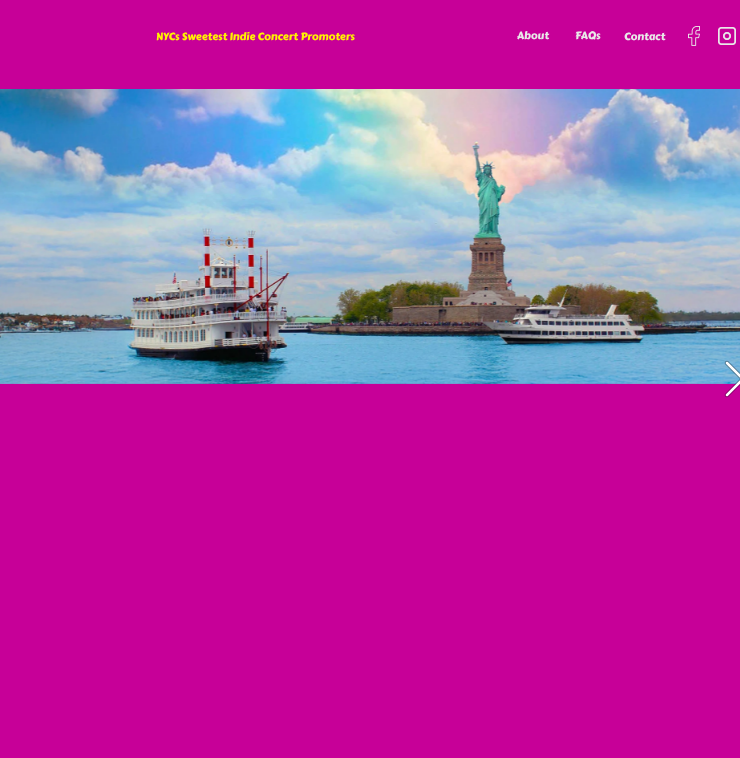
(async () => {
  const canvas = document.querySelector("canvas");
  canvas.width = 740;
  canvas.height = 758;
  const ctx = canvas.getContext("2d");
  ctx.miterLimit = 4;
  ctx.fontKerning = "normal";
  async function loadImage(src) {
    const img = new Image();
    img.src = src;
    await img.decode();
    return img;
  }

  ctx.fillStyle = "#c70098";
  ctx.fillRect(0, 0, 740, 758);
  ctx.drawImage(await loadImage("img/1.png"), 688, 26, 12, 20);
  ctx.drawImage(await loadImage("img/2.png"), 718, 27, 18, 18);
  ctx.drawImage(await loadImage("img/3.png"), 0, 89, 740, 295);
  ctx.drawImage(await loadImage("img/4.png"), 724, 360, 16, 38);
  ctx.font = "10.5px Carter One";
  ctx.fillStyle = "#fff200";
  ctx.fillText("NYCs Sweetest Indie Concert Promoters", 156, 40);
  ctx.fillStyle = "#e9e9e9";
  for (const [text, x, y] of [
    ["About", 517, 39],
    ["FAQs", 575, 39],
    ["Contact", 624, 40],
  ]) {
    ctx.fillText(text, x, y);
  }
})();
